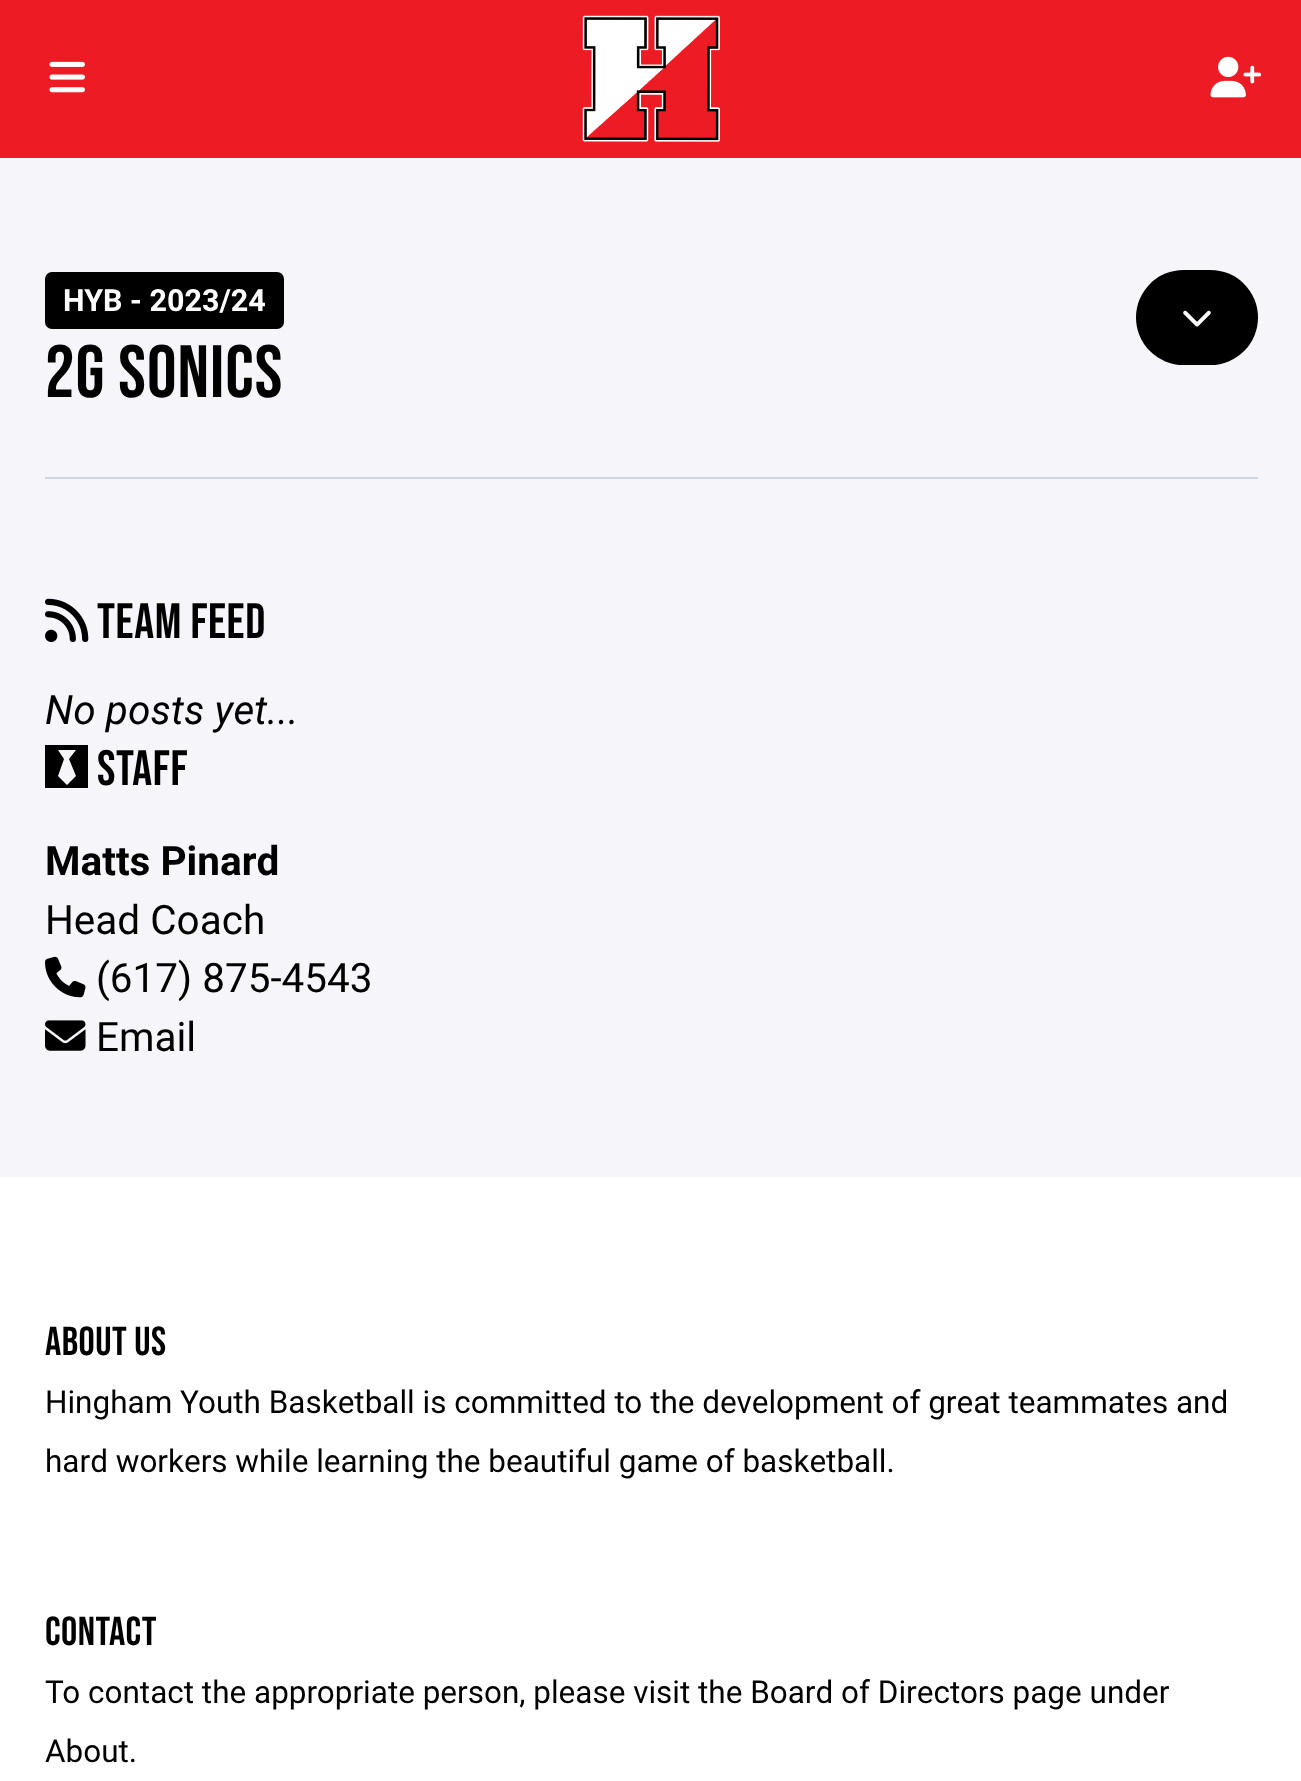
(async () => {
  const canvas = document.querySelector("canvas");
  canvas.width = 1301;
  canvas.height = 1781;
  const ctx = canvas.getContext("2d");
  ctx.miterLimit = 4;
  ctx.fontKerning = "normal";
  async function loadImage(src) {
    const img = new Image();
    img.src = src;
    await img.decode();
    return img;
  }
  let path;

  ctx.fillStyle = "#f6f5fa";
  ctx.fillRect(0, 0, 1301, 1781);
  ctx.fillStyle = "#ed1c24";
  ctx.fillRect(0, 0, 1301, 158);
  ctx.drawImage(await loadImage("img/1.png"), 49, 61, 36, 32);
  ctx.drawImage(await loadImage("img/2.png"), 582, 15, 138, 127);
  ctx.drawImage(await loadImage("img/3.png"), 1210, 56, 52, 42);
  ctx.fillStyle = "#000000";
  ctx.beginPath();
  ctx.roundRect(45, 272, 239, 57, 7);
  ctx.fill();
  ctx.beginPath();
  ctx.roundRect(1136, 270, 122, 95, 47.5);
  ctx.fill();
  ctx.drawImage(await loadImage("img/4.png"), 1183, 310, 28, 17);
  ctx.fillStyle = "#ced7e0";
  ctx.fillRect(45, 477, 1213, 2);
  ctx.drawImage(await loadImage("img/5.png"), 45, 598, 44, 45);
  ctx.fillStyle = "#000000";
  path = new Path2D("M45 745V788V745V788H88V745ZM76 776L67 785L76 776L67 785L58 776L64 759L58 750H76L69 759Z");
  ctx.fill(path);
  ctx.drawImage(await loadImage("img/6.png"), 45, 956, 41, 42);
  ctx.drawImage(await loadImage("img/7.png"), 45, 1020, 41, 31);
  ctx.fillStyle = "#ffffff";
  ctx.fillRect(0, 1177, 1301, 604);
  ctx.font = "bold 30.5px Roboto";
  ctx.fillText("HYB - 2023/24", 63, 311);
  ctx.letterSpacing = "1px";
  ctx.font = "74px Bebas Neue";
  ctx.fillStyle = "#000000";
  ctx.fillText("2G SONICS", 45, 397);
  ctx.letterSpacing = "0.6px";
  ctx.font = "49.5px Bebas Neue";
  ctx.fillText("TEAM FEED", 97, 638);
  ctx.letterSpacing = "0px";
  ctx.font = "italic 40.5px Roboto";
  ctx.fillText("No posts yet...", 45, 724);
  ctx.letterSpacing = "0.6px";
  ctx.font = "49.5px Bebas Neue";
  ctx.fillText("STAFF", 97, 785);
  ctx.letterSpacing = "0px";
  ctx.font = "bold 40.5px Roboto";
  ctx.fillText("Matts Pinard", 45, 875);
  ctx.font = "40.5px Roboto";
  for (const [text, x, y] of [
    ["Head Coach", 45, 934],
    ["(617) 875-4543", 96, 992],
    ["Email", 96, 1051],
  ]) {
    ctx.fillText(text, x, y);
  }
  ctx.letterSpacing = "0.5px";
  ctx.font = "40.5px Bebas Neue";
  ctx.fillText("ABOUT US", 45, 1355);
  ctx.letterSpacing = "0px";
  ctx.font = "31.5px Roboto";
  ctx.fillText("Hingham Youth Basketball is committed to the development of great teammates and", 45, 1413);
  ctx.fillText("hard workers while learning the beautiful game of basketball.", 45, 1472);
  ctx.letterSpacing = "0.5px";
  ctx.font = "40.5px Bebas Neue";
  ctx.fillText("CONTACT", 45, 1645);
  ctx.letterSpacing = "0px";
  ctx.font = "31.5px Roboto";
  ctx.fillText("To contact the appropriate person, please visit the Board of Directors page under", 45, 1703);
  ctx.fillText("About.", 45, 1762);
})();
